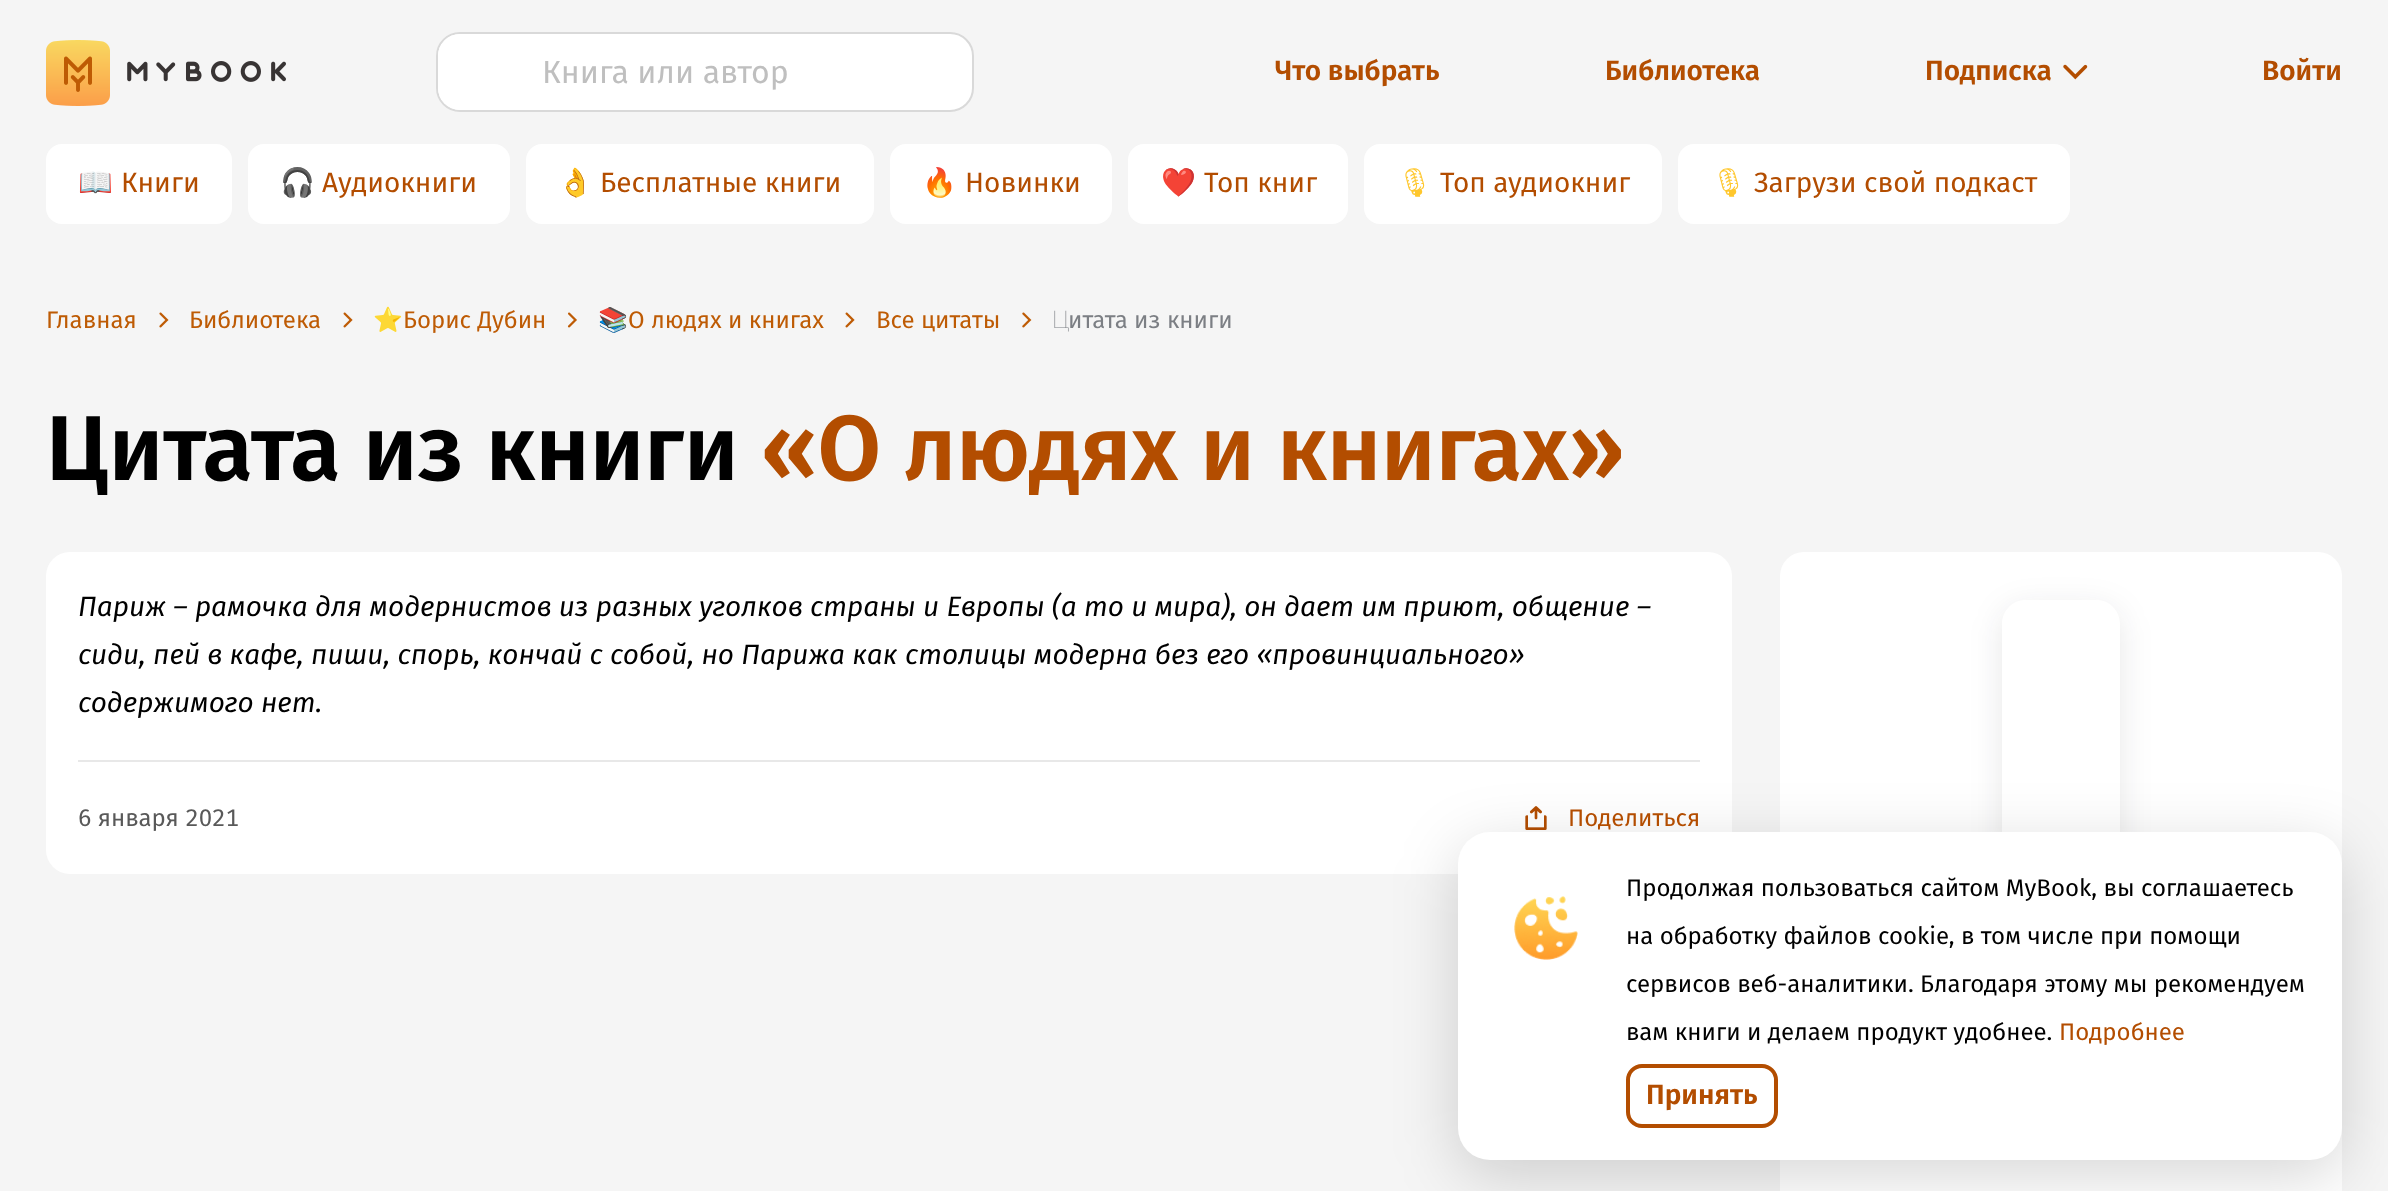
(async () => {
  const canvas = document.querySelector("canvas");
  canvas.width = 2388;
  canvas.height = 1191;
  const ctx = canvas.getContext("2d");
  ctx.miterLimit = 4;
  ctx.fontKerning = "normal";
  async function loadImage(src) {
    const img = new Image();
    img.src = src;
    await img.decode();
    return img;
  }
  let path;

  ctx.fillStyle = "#f5f5f5";
  ctx.fillRect(0, 0, 2388, 1191);
  ctx.drawImage(await loadImage("img/1.png"), 46, 40, 64, 66);
  ctx.drawImage(await loadImage("img/2.png"), 127, 61, 159, 21);
  ctx.fillStyle = "#ffffff";
  ctx.beginPath();
  ctx.roundRect(437, 33, 536, 78, 23);
  ctx.fill();
  ctx.strokeStyle = "#d9d9d9";
  ctx.lineWidth = 2;
  ctx.stroke();
  ctx.beginPath();
  ctx.roundRect(438, 34, 454, 76, [22, 16, 16, 22]);
  ctx.fill();
  ctx.drawImage(await loadImage("img/3.png"), 2063, 64, 25, 16);
  ctx.beginPath();
  ctx.roundRect(46, 144, 186, 80, 16);
  ctx.fill();
  ctx.beginPath();
  ctx.roundRect(248, 144, 262, 80, 16);
  ctx.fill();
  ctx.beginPath();
  ctx.roundRect(526, 144, 348, 80, 16);
  ctx.fill();
  ctx.beginPath();
  ctx.roundRect(890, 144, 222, 80, 16);
  ctx.fill();
  ctx.beginPath();
  ctx.roundRect(1128, 144, 220, 80, 16);
  ctx.fill();
  ctx.beginPath();
  ctx.roundRect(1364, 144, 298, 80, 16);
  ctx.fill();
  ctx.beginPath();
  ctx.roundRect(1678, 144, 392, 80, 16);
  ctx.fill();
  ctx.beginPath();
  ctx.roundRect(46, 552, 1686, 322, 24);
  ctx.fill();
  ctx.fillStyle = "#e8e8e8";
  ctx.fillRect(78, 760, 1622, 2);
  ctx.drawImage(await loadImage("img/9.png"), 1525, 806, 22, 24);
  ctx.fillStyle = "#ffffff";
  ctx.beginPath();
  ctx.roundRect(1780, 552, 562, 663, 24);
  ctx.fill();
  ctx.fillStyle = "rgba(0, 0, 0, 0.16)";
  ctx.filter = "blur(32px)";
  ctx.beginPath();
  ctx.roundRect(1458, 848, 884, 328, 32);
  ctx.fill();
  ctx.filter = "none";
  ctx.save();
  path = new Path2D("M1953 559H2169V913H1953ZM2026 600H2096C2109.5 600 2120 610.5 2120 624V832C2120 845.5 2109.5 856 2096 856H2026C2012.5 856 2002 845.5 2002 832V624C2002 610.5 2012.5 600 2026 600Z");
  ctx.clip(path, "evenodd");
  ctx.fillStyle = "rgba(17, 17, 26, 0.1)";
  ctx.filter = "blur(16px)";
  ctx.beginPath();
  ctx.roundRect(2002, 608, 118, 256, 24);
  ctx.fill();
  ctx.filter = "none";
  ctx.restore();
  ctx.fillStyle = "#ffffff";
  ctx.beginPath();
  ctx.roundRect(1458, 832, 884, 328, 32);
  ctx.fill();
  ctx.drawImage(await loadImage("img/4.png"), 1514, 896, 64, 64);
  ctx.beginPath();
  ctx.roundRect(1628, 1066, 148, 60, 14);
  ctx.strokeStyle = "#b34d00";
  ctx.lineWidth = 4;
  ctx.stroke();
  ctx.drawImage(await loadImage("img/5.png"), 159, 312, 10, 16);
  ctx.drawImage(await loadImage("img/6.png"), 343, 312, 10, 16);
  ctx.drawImage(await loadImage("img/7.png"), 567, 312, 10, 16);
  ctx.drawImage(await loadImage("img/6.png"), 845, 312, 10, 16);
  ctx.drawImage(await loadImage("img/8.png"), 1022, 312, 10, 16);
  ctx.font = "32px Fira Sans";
  ctx.fillStyle = "#bfbfbf";
  ctx.fillText("Книга или автор", 542, 83);
  ctx.font = "600 28px Fira Sans";
  ctx.fillStyle = "#b34d00";
  for (const [text, x, y] of [
    ["Что выбрать", 1275, 80],
    ["Библиотека", 1605, 80],
    ["Подписка", 1925, 80],
    ["Войти", 2262, 80],
  ]) {
    ctx.fillText(text, x, y);
  }
  ctx.font = "28px Noto Color Emoji";
  ctx.fillStyle = "#ffc72c";
  ctx.fillText("📖", 78, 192);
  ctx.font = "28px Fira Sans";
  ctx.fillStyle = "#b34d00";
  ctx.fillText("Книги", 121, 192);
  ctx.font = "28px Noto Color Emoji";
  ctx.fillStyle = "#ffc72c";
  ctx.fillText("🎧", 280, 192);
  ctx.font = "28px Fira Sans";
  ctx.fillStyle = "#b34d00";
  ctx.fillText("Аудиокниги", 322, 192);
  ctx.font = "28px Noto Color Emoji";
  ctx.fillStyle = "#ffc72c";
  ctx.fillText("👌", 558, 192);
  ctx.font = "28px Fira Sans";
  ctx.fillStyle = "#b34d00";
  ctx.fillText("Бесплатные книги", 600, 192);
  ctx.font = "28px Noto Color Emoji";
  ctx.fillStyle = "#ffc72c";
  ctx.fillText("🔥", 922, 192);
  ctx.font = "28px Fira Sans";
  ctx.fillStyle = "#b34d00";
  ctx.fillText("Новинки", 965, 192);
  ctx.font = "28px Noto Color Emoji";
  ctx.fillStyle = "#ffc72c";
  ctx.fillText("❤️", 1161, 192);
  ctx.font = "28px Fira Sans";
  ctx.fillStyle = "#b34d00";
  ctx.fillText("Топ книг", 1204, 192);
  ctx.font = "28px Noto Emoji";
  ctx.fillStyle = "#ffc72c";
  ctx.fillText("🎙", 1397, 192);
  ctx.font = "28px Fira Sans";
  ctx.fillStyle = "#b34d00";
  ctx.fillText("Топ аудиокниг", 1440, 192);
  ctx.font = "28px Noto Emoji";
  ctx.fillStyle = "#ffc72c";
  ctx.fillText("🎙", 1711, 192);
  ctx.font = "28px Fira Sans";
  ctx.fillStyle = "#b34d00";
  ctx.fillText("Загрузи свой подкаст", 1754, 192);
  ctx.font = "24px Fira Sans";
  ctx.fillStyle = "#000000";
  for (const [text, x, y] of [
    ["Продолжая пользоваться сайтом MyBook, вы соглашаетесь", 1626, 896],
    ["на обработку файлов cookie, в том числе при помощи", 1626, 944],
    ["сервисов веб-аналитики. Благодаря этому мы рекомендуем", 1626, 992],
    ["вам книги и делаем продукт удобнее.", 1626, 1040],
  ]) {
    ctx.fillText(text, x, y);
  }
  ctx.fillStyle = "#b34d00";
  ctx.fillText("Подробнее", 2059, 1040);
  ctx.font = "600 28px Fira Sans";
  ctx.fillText("Принять", 1646, 1104);
  ctx.font = "24px Fira Sans";
  ctx.fillStyle = "#be5b04";
  ctx.fillText("Главная", 46, 328);
  ctx.fillText("Библиотека", 189, 328);
  ctx.font = "24px Noto Color Emoji";
  ctx.fillText("⭐️", 373, 328);
  ctx.font = "24px Fira Sans";
  ctx.fillText("Борис Дубин", 403, 328);
  ctx.font = "24px Noto Color Emoji";
  ctx.fillText("📚", 598, 328);
  ctx.font = "24px Fira Sans";
  ctx.fillText("О людях и книгах", 628, 328);
  ctx.fillText("Все цитаты", 876, 328);
  ctx.font = "100 24px Noto Sans";
  ctx.fillStyle = "#7c7f84";
  ctx.fillText("Ц", 1052, 328);
  ctx.font = "24px Fira Sans";
  ctx.fillText("итата из книги", 1068, 328);
  ctx.font = "600 92px Fira Sans";
  ctx.fillStyle = "#000000";
  ctx.fillText("Цитата из книги", 46, 480);
  ctx.fillStyle = "#b34d00";
  ctx.fillText("«О людях и книгах»", 761, 480);
  ctx.font = "italic 28px Fira Sans";
  ctx.fillStyle = "#000000";
  for (const [text, x, y] of [
    ["Париж – рамочка для модернистов из разных уголков страны и Европы (а то и мира), он дает им приют, общение –", 78, 616],
    ["сиди, пей в кафе, пиши, спорь, кончай с собой, но Парижа как столицы модерна без его «провинциального»", 78, 664],
    ["содержимого нет.", 78, 712],
  ]) {
    ctx.fillText(text, x, y);
  }
  ctx.font = "24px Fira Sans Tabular";
  ctx.fillStyle = "#595959";
  ctx.fillText("6 января 2021", 78, 826);
  ctx.font = "24px Fira Sans";
  ctx.fillStyle = "#b34d00";
  ctx.fillText("Поделиться", 1568, 826);
})();
